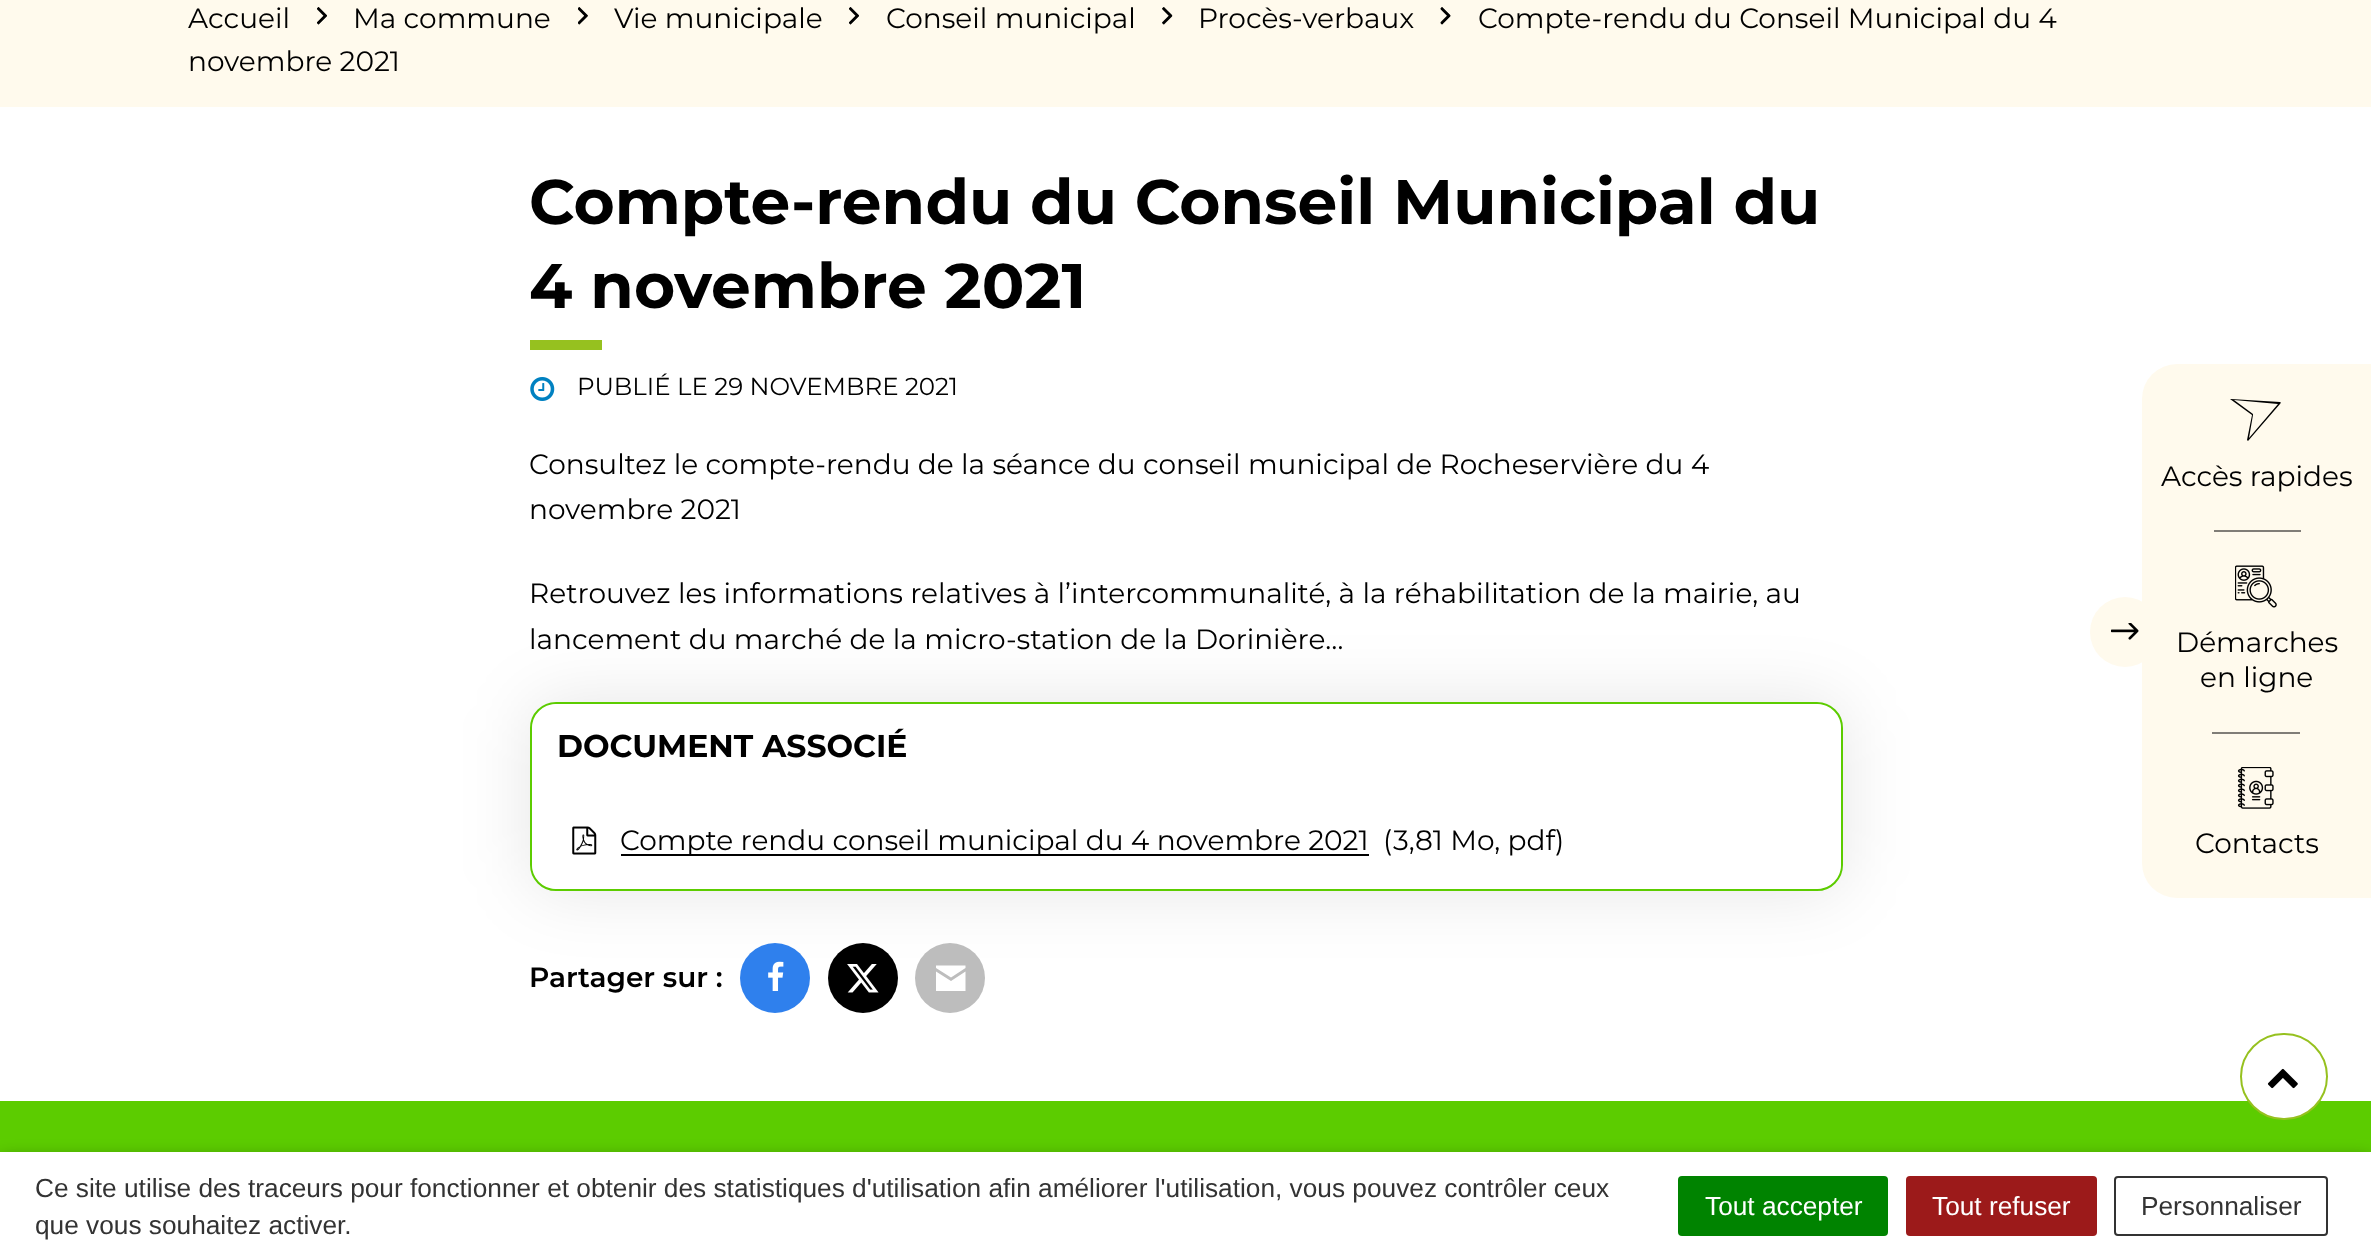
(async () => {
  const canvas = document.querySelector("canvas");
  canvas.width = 2371;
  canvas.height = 1259;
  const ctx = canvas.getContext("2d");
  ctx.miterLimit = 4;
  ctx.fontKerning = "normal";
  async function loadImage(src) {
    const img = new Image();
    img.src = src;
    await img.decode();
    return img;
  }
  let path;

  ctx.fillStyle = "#ffffff";
  ctx.fillRect(0, 0, 2371, 1259);
  ctx.fillStyle = "#fffaed";
  ctx.fillRect(0, 0, 2371, 107);
  ctx.drawImage(await loadImage("img/1.png"), 1440, 7, 11, 18);
  ctx.drawImage(await loadImage("img/2.png"), 317, 7, 10, 18);
  ctx.drawImage(await loadImage("img/3.png"), 578, 7, 10, 18);
  ctx.drawImage(await loadImage("img/2.png"), 849, 7, 10, 18);
  ctx.drawImage(await loadImage("img/4.png"), 1162, 7, 11, 18);
  ctx.fillStyle = "#96c11f";
  ctx.fillRect(530, 340, 72, 10);
  ctx.drawImage(await loadImage("img/5.png"), 530, 377, 25, 24);
  ctx.fillStyle = "rgba(0, 0, 0, 0.1)";
  ctx.filter = "blur(35px)";
  ctx.beginPath();
  ctx.roundRect(530, 702, 1313, 189, 26);
  ctx.fill();
  ctx.filter = "none";
  ctx.fillStyle = "#ffffff";
  ctx.beginPath();
  ctx.roundRect(531, 703, 1311, 187, 25);
  ctx.fill();
  ctx.strokeStyle = "#5ccc00";
  ctx.lineWidth = 2;
  ctx.stroke();
  ctx.beginPath();
  ctx.roundRect(532, 704, 1309, 87, [26, 26, 0, 0]);
  ctx.fill();
  ctx.beginPath();
  ctx.roundRect(532, 791, 1309, 98, [0, 0, 26, 26]);
  ctx.fill();
  ctx.drawImage(await loadImage("img/6.png"), 572, 826, 25, 29);
  ctx.fillStyle = "#000000";
  ctx.fillRect(621, 854, 748, 2);
  ctx.fillStyle = "#2f80ed";
  ctx.beginPath();
  ctx.arc(775, 978, 35, 0, Math.PI * 2);
  ctx.fill();
  ctx.drawImage(await loadImage("img/7.png"), 768, 961, 16, 30);
  ctx.fillStyle = "#000000";
  ctx.beginPath();
  ctx.arc(863, 978, 35, 0, Math.PI * 2);
  ctx.fill();
  ctx.drawImage(await loadImage("img/8.png"), 847, 964, 32, 29);
  ctx.fillStyle = "#bdbdbd";
  ctx.beginPath();
  ctx.arc(950, 978, 35, 0, Math.PI * 2);
  ctx.fill();
  ctx.fillStyle = "#ffffff";
  path = new Path2D("M936 965.5V968L951 977.5L965.5 968V965.5ZM936 971.5V991H965.5V971.5L951 981Z");
  ctx.fill(path, "evenodd");
  ctx.fillStyle = "#fffaed";
  ctx.beginPath();
  ctx.roundRect(2142, 364, 229, 534, [35, 0, 0, 35]);
  ctx.fill();
  ctx.beginPath();
  ctx.arc(2125, 632, 35, 0, Math.PI * 2);
  ctx.fill();
  ctx.drawImage(await loadImage("img/9.png"), 2111, 623, 28, 17);
  ctx.fillStyle = "#000000";
  path = new Path2D("M2280 402L2231 399H2230L2252 415L2247 440L2248 441L2280 404C2281 403 2281 402 2280 402ZM2249 438L2253 415V414L2234 400L2278 404Z");
  ctx.fill(path);
  ctx.fillStyle = "#807d77";
  ctx.fillRect(2214, 530, 87, 2);
  ctx.drawImage(await loadImage("img/10.png"), 2235, 565, 42, 43);
  ctx.fillRect(2212, 732, 88, 2);
  ctx.drawImage(await loadImage("img/11.png"), 2237, 767, 37, 42);
  ctx.fillStyle = "#5ccc00";
  ctx.fillRect(0, 1101, 2371, 51);
  ctx.fillStyle = "#ffffff";
  ctx.beginPath();
  ctx.roundRect(2241, 1034, 86, 85, 42.5);
  ctx.fill();
  ctx.strokeStyle = "#96c11f";
  ctx.stroke();
  ctx.drawImage(await loadImage("img/12.png"), 2267, 1068, 31, 21);
  ctx.fillStyle = "rgba(0, 0, 0, 0.5)";
  ctx.filter = "blur(9px)";
  ctx.beginPath();
  ctx.rect(0, 1160, 2371, 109);
  ctx.fill();
  ctx.filter = "none";
  ctx.fillStyle = "#ffffff";
  ctx.fillRect(0, 1152, 2371, 107);
  ctx.fillStyle = "#008300";
  ctx.beginPath();
  ctx.roundRect(1678, 1176, 210, 60, 4);
  ctx.fill();
  ctx.fillStyle = "#9c1a1a";
  ctx.beginPath();
  ctx.roundRect(1906, 1176, 191, 60, 4);
  ctx.fill();
  ctx.beginPath();
  ctx.roundRect(2115, 1177, 212, 58, 3);
  ctx.strokeStyle = "#333333";
  ctx.stroke();
  ctx.font = "28px Montserrat";
  ctx.fillStyle = "#000000";
  for (const [text, x, y] of [
    ["Accueil", 188, 28],
    ["Compte-rendu du Conseil Municipal du 4", 1478, 28],
    ["novembre 2021", 188, 71],
    ["Ma commune", 353, 28],
    ["Vie municipale", 614, 28],
    ["Conseil municipal", 886, 28],
    ["Procès-verbaux", 1198, 28],
  ]) {
    ctx.fillText(text, x, y);
  }
  ctx.font = "bold 63px Montserrat";
  ctx.fillText("Compte-rendu du Conseil Municipal du", 529, 224);
  ctx.fillText("4 novembre 2021", 529, 308);
  ctx.font = "24.5px Montserrat";
  ctx.fillText("PUBLIÉ LE 29 NOVEMBRE 2021", 577, 395);
  ctx.font = "28px Montserrat";
  for (const [text, x, y] of [
    ["Consultez le compte-rendu de la séance du conseil municipal de Rocheservière du 4", 529, 474],
    ["novembre 2021", 529, 519],
    ["Retrouvez les informations relatives à l’intercommunalité, à la réhabilitation de la mairie, au", 529, 603],
    ["lancement du marché de la micro-station de la Dorinière…", 529, 649],
  ]) {
    ctx.fillText(text, x, y);
  }
  ctx.font = "bold 31.5px Montserrat";
  ctx.fillText("DOCUMENT ASSOCIÉ", 557, 757);
  ctx.font = "28px Montserrat";
  for (const [text, x, y] of [
    ["Compte rendu conseil municipal du 4 novembre 2021", 620, 850],
    ["(", 1383, 850],
    ["3,81 Mo, pdf", 1393, 850],
    [")", 1555, 850],
  ]) {
    ctx.fillText(text, x, y);
  }
  ctx.font = "600 28px Montserrat";
  ctx.fillText("Partager sur :", 529, 987);
  ctx.font = "28px Montserrat";
  for (const [text, x, y] of [
    ["Accès rapides", 2161, 486],
    ["Démarches", 2176, 652],
    ["en ligne", 2200, 687],
    ["Contacts", 2195, 853],
  ]) {
    ctx.fillText(text, x, y);
  }
  ctx.font = "26.25px Liberation Sans";
  ctx.fillStyle = "#333333";
  ctx.fillText("Ce site utilise des traceurs pour fonctionner et obtenir des statistiques d'utilisation afin améliorer l'utilisation, vous pouvez contrôler ceux", 35, 1197);
  ctx.fillText("que vous souhaitez activer.", 35, 1234);
  ctx.fillStyle = "#ffffff";
  ctx.fillText("Tout accepter", 1705, 1215);
  ctx.fillText("Tout refuser", 1932, 1215);
  ctx.fillStyle = "#333333";
  ctx.fillText("Personnaliser", 2141, 1215);
})();
